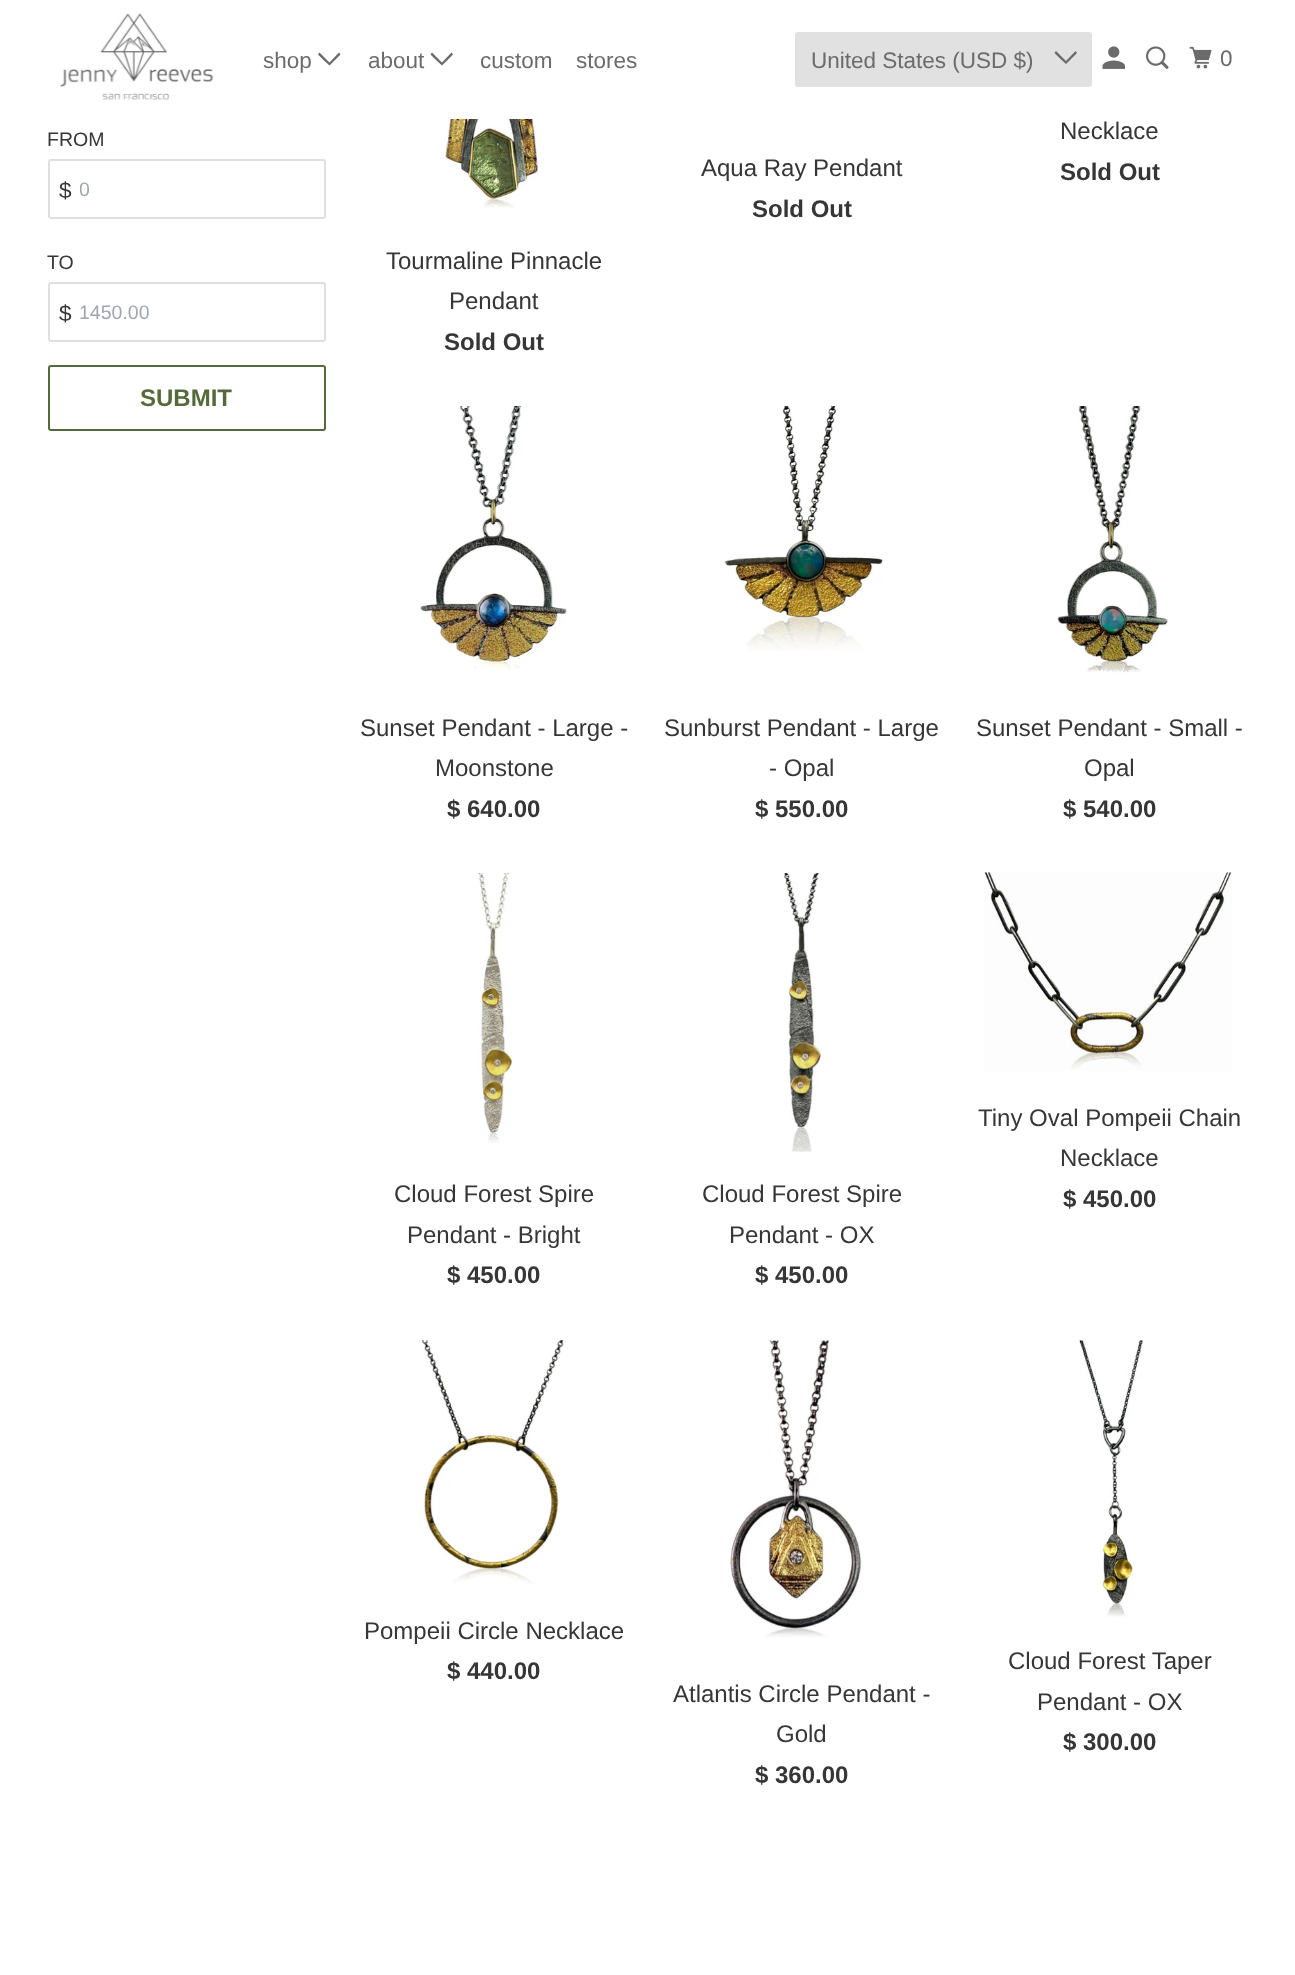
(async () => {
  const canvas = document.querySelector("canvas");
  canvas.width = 1295;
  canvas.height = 1975;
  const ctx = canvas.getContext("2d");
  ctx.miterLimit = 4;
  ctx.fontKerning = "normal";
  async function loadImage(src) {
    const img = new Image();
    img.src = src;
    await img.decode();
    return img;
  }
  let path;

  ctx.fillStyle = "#ffffff";
  ctx.fillRect(0, 0, 1295, 1975);
  ctx.drawImage(await loadImage("img/1.png"), 60, 13, 154, 87);
  ctx.fillStyle = "#6b6b6b";
  path = new Path2D("M323.5 60L318 54.5L319.5 52.5L329.5 62.5L339 52.5L340.5 54.5L329.5 65.5Z");
  ctx.fill(path);
  path = new Path2D("M436 60L430.5 54.5L432 52.5L442 62.5L451.5 52.5L453 54.5L442 65.5Z");
  ctx.fill(path);
  ctx.fillStyle = "#e1e1e1";
  ctx.beginPath();
  ctx.roundRect(795, 32, 297, 55, 3);
  ctx.fill();
  ctx.fillStyle = "#6b6b6b";
  path = new Path2D("M1060 58.5L1054.5 53L1056 51L1066 61L1075.5 51L1077 53L1066 64Z");
  ctx.fill(path);
  ctx.drawImage(await loadImage("img/2.png"), 1102, 46, 23, 23);
  ctx.drawImage(await loadImage("img/3.png"), 1146, 46, 23, 23);
  ctx.drawImage(await loadImage("img/4.png"), 1189, 46, 23, 23);
  ctx.beginPath();
  ctx.roundRect(49, 160, 276, 58, 2);
  ctx.strokeStyle = "#dfdfdf";
  ctx.lineWidth = 2;
  ctx.stroke();
  ctx.beginPath();
  ctx.roundRect(49, 283, 276, 58, 2);
  ctx.stroke();
  ctx.beginPath();
  ctx.roundRect(49, 366, 276, 64, 2);
  ctx.strokeStyle = "#546a3a";
  ctx.stroke();
  ctx.drawImage(await loadImage("img/5.png"), 444, 119, 96, 89);
  ctx.drawImage(await loadImage("img/6.png"), 420, 406, 147, 263);
  ctx.drawImage(await loadImage("img/7.png"), 724, 406, 160, 245);
  ctx.drawImage(await loadImage("img/8.png"), 1057, 406, 111, 267);
  ctx.drawImage(await loadImage("img/9.png"), 984, 872, 248, 199);
  ctx.drawImage(await loadImage("img/10.png"), 478, 873, 35, 270);
  ctx.drawImage(await loadImage("img/11.png"), 783, 873, 40, 279);
  ctx.drawImage(await loadImage("img/12.png"), 421, 1340, 145, 244);
  ctx.drawImage(await loadImage("img/13.png"), 730, 1340, 133, 298);
  ctx.drawImage(await loadImage("img/14.png"), 1079, 1340, 64, 278);
  ctx.font = "22.5px Liberation Sans";
  for (const [text, x, y] of [
    ["shop", 263, 68],
    ["about", 368, 68],
    ["custom", 480, 68],
    ["stores", 576, 68],
    ["United States (USD $)", 811, 68],
    ["0", 1220, 66],
  ]) {
    ctx.fillText(text, x, y);
  }
  ctx.font = "19.5px Liberation Sans";
  ctx.fillStyle = "#363636";
  ctx.fillText("FROM", 47, 146);
  ctx.font = "22.5px Liberation Sans";
  ctx.fillText("$", 59, 198);
  ctx.save();
  ctx.beginPath();
  ctx.rect(80, 179, 208, 22);
  ctx.clip();
  ctx.font = "19.5px Liberation Sans";
  ctx.fillStyle = "#9fa6b1";
  ctx.fillText("0", 79, 196);
  ctx.restore();
  ctx.font = "19.5px Liberation Sans";
  ctx.fillText("TO", 47, 269);
  ctx.font = "22.5px Liberation Sans";
  ctx.fillText("$", 59, 321);
  ctx.font = "19.5px Liberation Sans";
  ctx.fillStyle = "#9fa6b1";
  ctx.fillText("1450.00", 79, 319);
  ctx.font = "bold 24px Liberation Sans";
  ctx.fillStyle = "#546a3a";
  ctx.fillText("SUBMIT", 140, 406);
  ctx.font = "24px Liberation Sans";
  ctx.fillStyle = "#363636";
  ctx.fillText("Necklace", 1060, 139);
  ctx.font = "bold 24px Liberation Sans";
  ctx.fillText("Sold Out", 1060, 180);
  ctx.font = "24px Liberation Sans";
  ctx.fillText("Aqua Ray Pendant", 701, 176);
  ctx.font = "bold 24px Liberation Sans";
  ctx.fillText("Sold Out", 752, 217);
  ctx.font = "24px Liberation Sans";
  ctx.fillText("Tourmaline Pinnacle", 386, 269);
  ctx.fillText("Pendant", 449, 309);
  ctx.font = "bold 24px Liberation Sans";
  ctx.fillText("Sold Out", 444, 350);
  ctx.font = "24px Liberation Sans";
  ctx.fillText("Sunset Pendant - Large -", 360, 736);
  ctx.fillText("Moonstone", 435, 776);
  ctx.font = "bold 24px Liberation Sans";
  ctx.fillText("$ 640.00", 447, 817);
  ctx.font = "24px Liberation Sans";
  ctx.fillText("Sunburst Pendant - Large", 664, 736);
  ctx.fillText("- Opal", 769, 776);
  ctx.font = "bold 24px Liberation Sans";
  ctx.fillText("$ 550.00", 755, 817);
  ctx.font = "24px Liberation Sans";
  ctx.fillText("Sunset Pendant - Small -", 976, 736);
  ctx.fillText("Opal", 1084, 776);
  ctx.font = "bold 24px Liberation Sans";
  ctx.fillText("$ 540.00", 1063, 817);
  ctx.font = "24px Liberation Sans";
  ctx.fillText("Tiny Oval Pompeii Chain", 978, 1126);
  ctx.fillText("Necklace", 1060, 1166);
  ctx.font = "bold 24px Liberation Sans";
  ctx.fillText("$ 450.00", 1063, 1207);
  ctx.font = "24px Liberation Sans";
  ctx.fillText("Cloud Forest Spire", 394, 1202);
  ctx.fillText("Pendant - Bright", 407, 1243);
  ctx.font = "bold 24px Liberation Sans";
  ctx.fillText("$ 450.00", 447, 1283);
  ctx.font = "24px Liberation Sans";
  ctx.fillText("Cloud Forest Spire", 702, 1202);
  ctx.fillText("Pendant - OX", 729, 1243);
  ctx.font = "bold 24px Liberation Sans";
  ctx.fillText("$ 450.00", 755, 1283);
  ctx.font = "24px Liberation Sans";
  ctx.fillText("Pompeii Circle Necklace", 364, 1639);
  ctx.font = "bold 24px Liberation Sans";
  ctx.fillText("$ 440.00", 447, 1679);
  ctx.font = "24px Liberation Sans";
  ctx.fillText("Atlantis Circle Pendant -", 673, 1702);
  ctx.fillText("Gold", 776, 1742);
  ctx.font = "bold 24px Liberation Sans";
  ctx.fillText("$ 360.00", 755, 1783);
  ctx.font = "24px Liberation Sans";
  ctx.fillText("Cloud Forest Taper", 1008, 1669);
  ctx.fillText("Pendant - OX", 1037, 1710);
  ctx.font = "bold 24px Liberation Sans";
  ctx.fillText("$ 300.00", 1063, 1750);
})();
